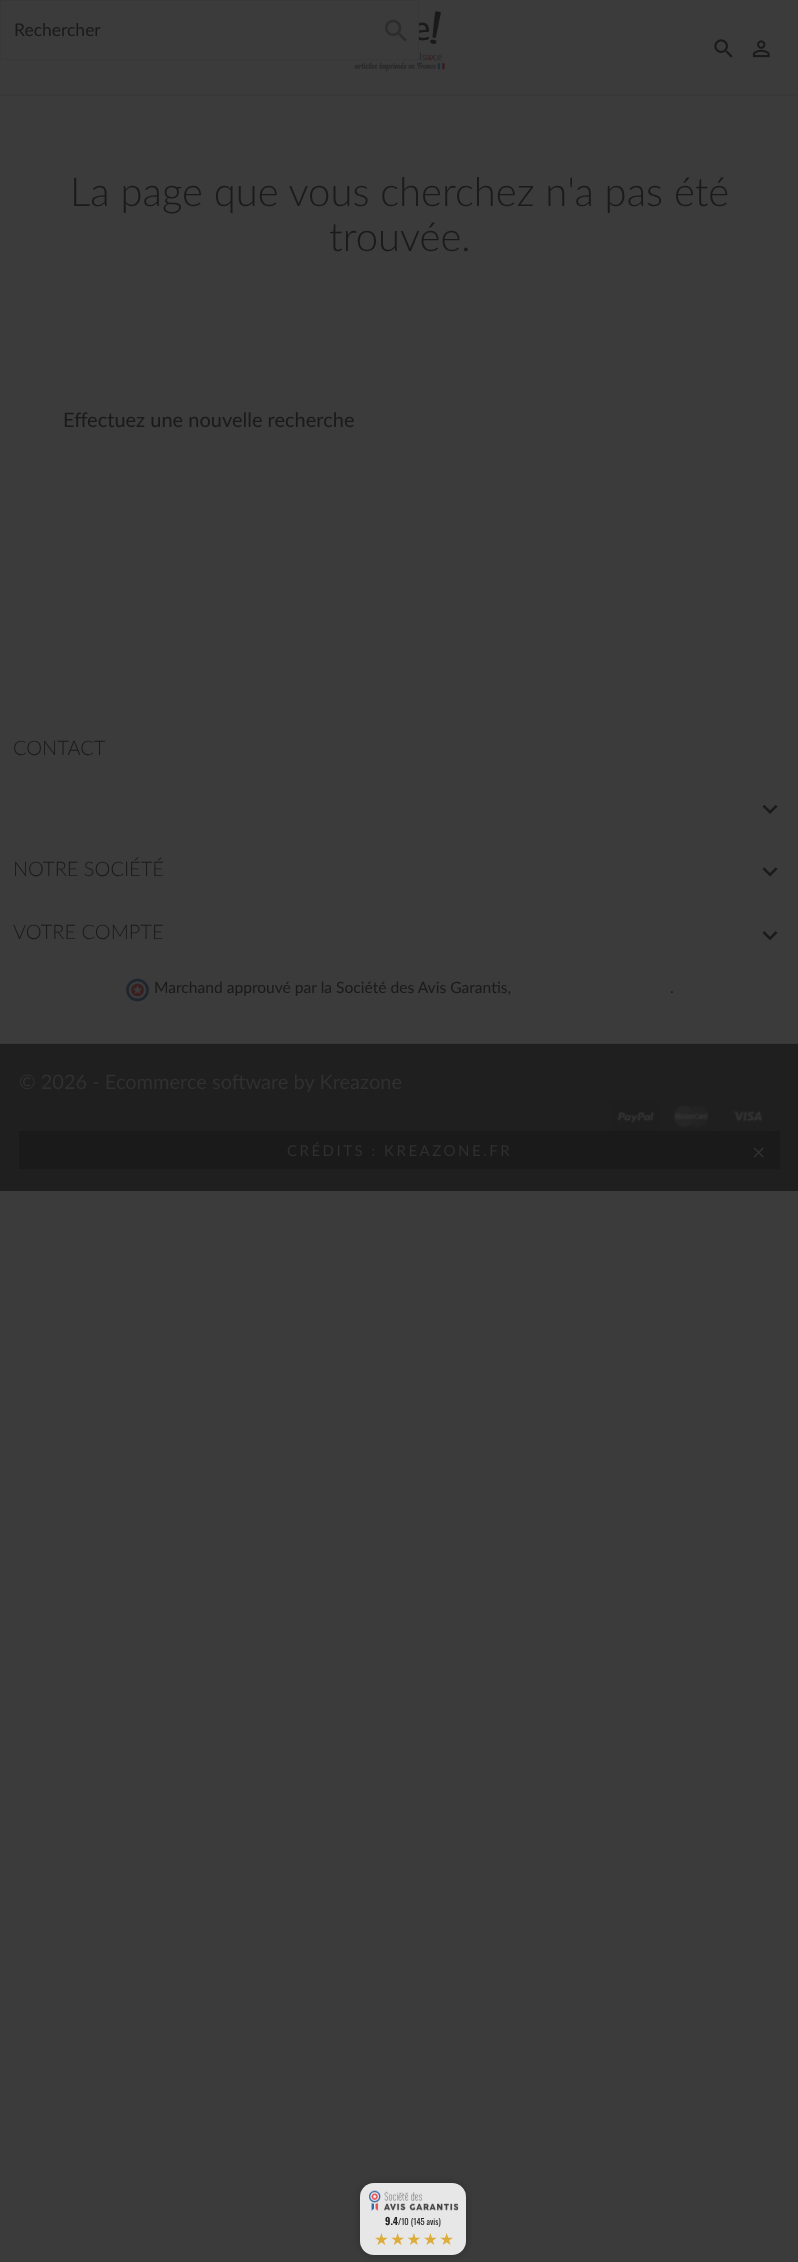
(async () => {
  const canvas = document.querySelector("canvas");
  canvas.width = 798;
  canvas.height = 2262;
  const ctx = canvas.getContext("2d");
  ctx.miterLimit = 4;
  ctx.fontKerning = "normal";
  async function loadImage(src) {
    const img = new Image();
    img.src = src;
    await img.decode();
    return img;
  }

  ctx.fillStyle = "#3b3b3b";
  ctx.fillRect(0, 0, 798, 2262);
  ctx.drawImage(await loadImage("img/1.png"), 354, 11, 91, 61);
  ctx.drawImage(await loadImage("img/2.png"), 714, 39, 19, 19);
  ctx.drawImage(await loadImage("img/3.png"), 752, 40, 18, 18);
  ctx.fillStyle = "#383838";
  ctx.fillRect(0, 94, 798, 2);
  ctx.fillStyle = "#3b3b3b";
  ctx.fillRect(358, 13, 60, 46);
  ctx.strokeStyle = "#383838";
  ctx.strokeRect(0.5, 0.5, 418, 59);
  ctx.drawImage(await loadImage("img/4.png"), 385, 19, 22, 23);
  ctx.drawImage(await loadImage("img/5.png"), 762, 804, 16, 10);
  ctx.drawImage(await loadImage("img/6.png"), 762, 867, 16, 10);
  ctx.drawImage(await loadImage("img/7.png"), 762, 931, 16, 10);
  ctx.drawImage(await loadImage("img/8.png"), 125, 978, 25, 24);
  ctx.fillStyle = "#1f1f1f";
  ctx.fillRect(0, 1044, 798, 147);
  ctx.fillStyle = "#373738";
  ctx.fillRect(0, 1043, 798, 1);
  ctx.drawImage(await loadImage("img/9.png"), 611, 1101, 48, 30);
  ctx.drawImage(await loadImage("img/10.png"), 672, 1103, 42, 28);
  ctx.drawImage(await loadImage("img/11.png"), 724, 1103, 46, 28);
  ctx.fillStyle = "#1a1a1a";
  ctx.fillRect(19, 1131, 761, 38);
  ctx.drawImage(await loadImage("img/12.png"), 753, 1147, 11, 11);
  ctx.fillStyle = "rgba(7, 7, 7, 0.25)";
  ctx.filter = "blur(3px)";
  ctx.beginPath();
  ctx.roundRect(360, 2183, 106, 72, 14);
  ctx.fill();
  ctx.filter = "none";
  ctx.fillStyle = "#e7e7e7";
  ctx.beginPath();
  ctx.roundRect(360, 2183, 106, 72, 14);
  ctx.fill();
  ctx.drawImage(await loadImage("img/13.png"), 369, 2190, 90, 21);
  ctx.font = "17.5px Lato";
  ctx.fillStyle = "#1a1a1a";
  ctx.fillText("Rechercher", 14, 36);
  ctx.font = "20px Lato";
  ctx.fillText("Effectuez une nouvelle recherche", 63, 427);
  ctx.font = "300 40px Lato";
  ctx.fillText("La page que vous cherchez n'a pas été", 70, 206);
  ctx.fillText("trouvée.", 329, 251);
  ctx.font = "300 20px Lato";
  for (const [text, x, y] of [
    ["CONTACT", 13, 755],
    ["NOTRE SOCIÉTÉ", 13, 876],
    ["VOTRE COMPTE", 13, 939],
  ]) {
    ctx.fillText(text, x, y);
  }
  ctx.font = "15.6px Lato";
  ctx.fillText("Marchand approuvé par la Société des Avis Garantis,", 154, 993);
  ctx.fillText(".", 670, 993);
  ctx.font = "20px Lato";
  ctx.fillStyle = "#303030";
  ctx.fillText("© 2026 - Ecommerce software by Kreazone", 19, 1089);
  ctx.letterSpacing = "2.5px";
  ctx.font = "15px Lato";
  ctx.fillText("CRÉDITS : KREAZONE.FR", 287, 1156);
  ctx.letterSpacing = "0px";
  ctx.font = "bold 10px Oswald";
  ctx.fillStyle = "#252525";
  ctx.fillText("9.4", 385, 2225);
  ctx.font = "8.5px Oswald";
  ctx.fillText("/10 (145 avis)", 398, 2225);
  ctx.letterSpacing = "1.5px";
  ctx.font = "16.5px DejaVu Sans";
  ctx.fillStyle = "#ddad3a";
  ctx.fillText("★★★★★", 374, 2245);
})();
